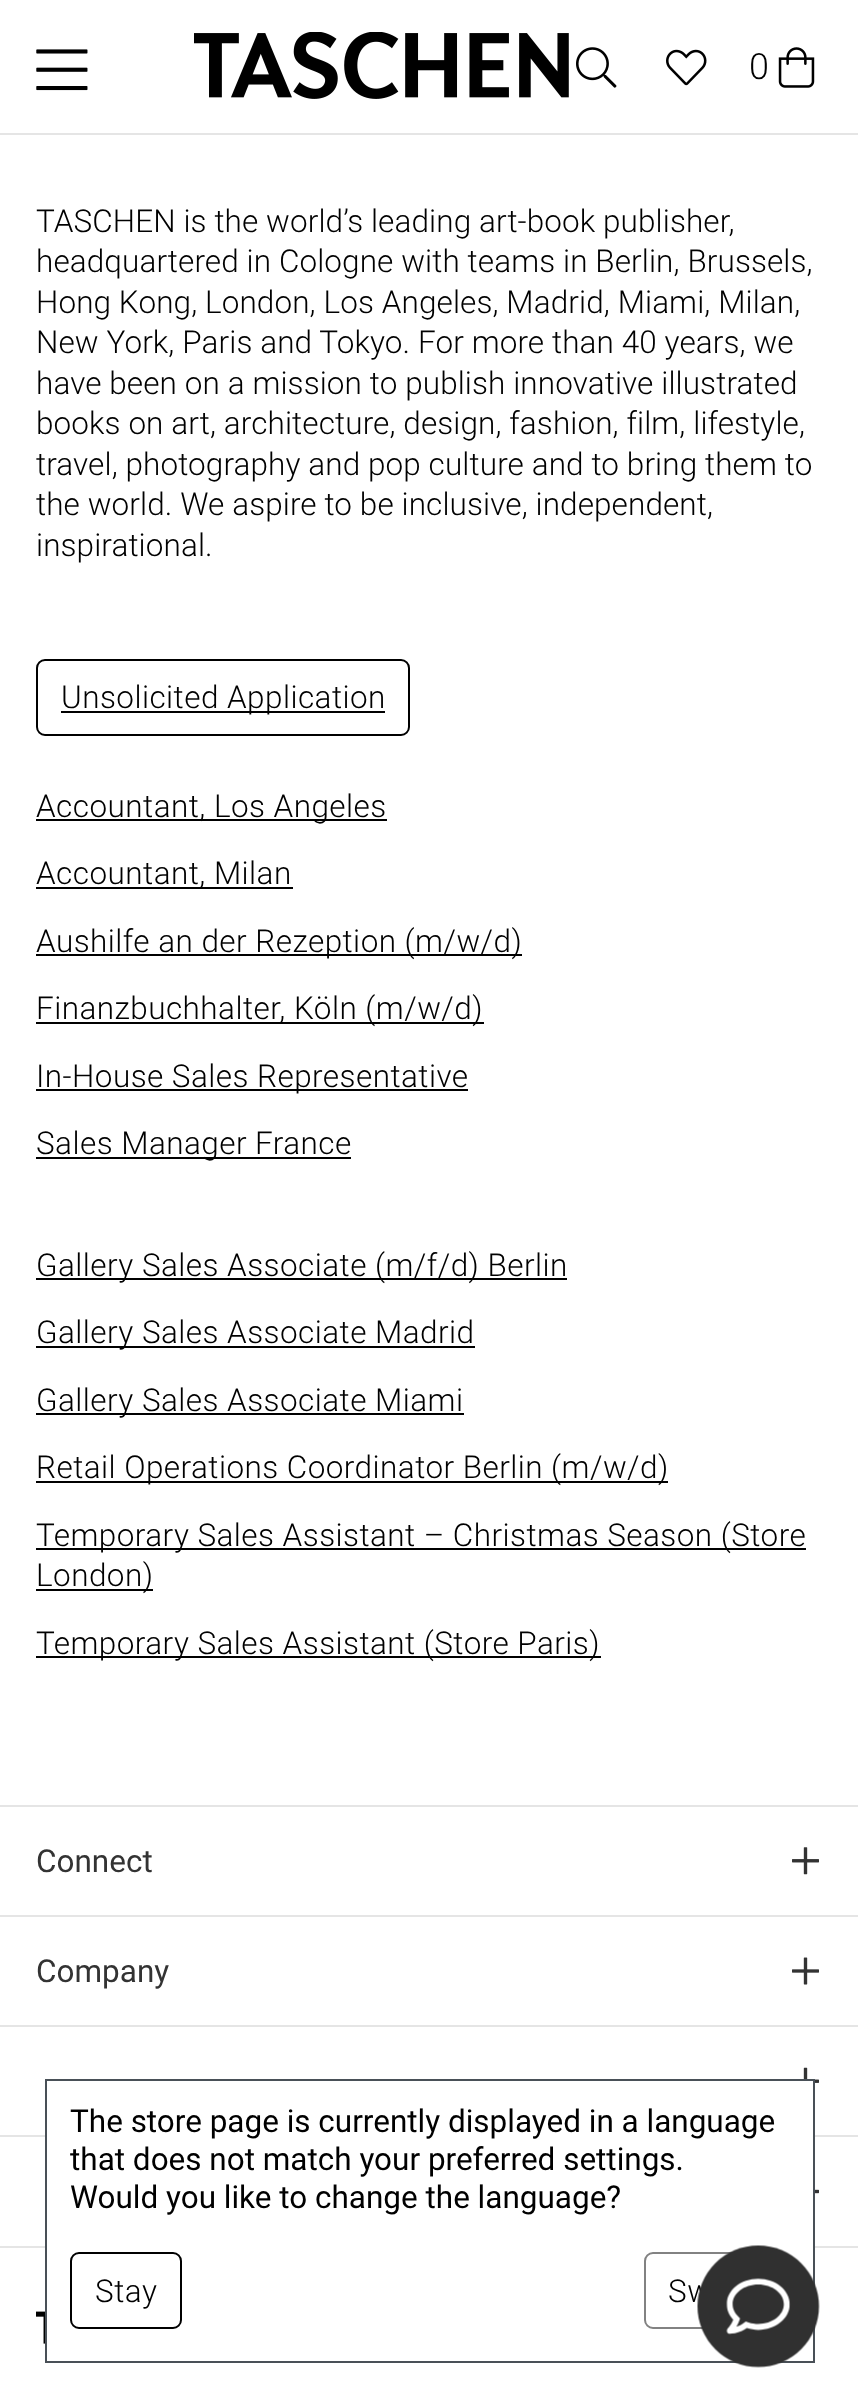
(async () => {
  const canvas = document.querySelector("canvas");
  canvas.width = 858;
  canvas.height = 2406;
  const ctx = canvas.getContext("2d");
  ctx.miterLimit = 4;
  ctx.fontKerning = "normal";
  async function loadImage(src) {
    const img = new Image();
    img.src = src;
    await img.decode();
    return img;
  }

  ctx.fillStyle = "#ffffff";
  ctx.fillRect(0, 0, 858, 2406);
  ctx.fillStyle = "#e5e5e5";
  ctx.fillRect(0, 133, 858, 2);
  ctx.drawImage(await loadImage("img/1.png"), 36, 49, 52, 42);
  ctx.drawImage(await loadImage("img/2.png"), 194, 32, 375, 67);
  ctx.drawImage(await loadImage("img/3.png"), 576, 47, 41, 41);
  ctx.drawImage(await loadImage("img/4.png"), 666, 49, 41, 37);
  ctx.drawImage(await loadImage("img/5.png"), 778, 47, 37, 41);
  ctx.beginPath();
  ctx.roundRect(37, 660, 372, 75, 8);
  ctx.strokeStyle = "#000000";
  ctx.lineWidth = 2;
  ctx.stroke();
  for (const [x, y, w, h, color] of [
    [61, 711, 324, 2, "#000000"],
    [36, 819, 351, 2, "#000000"],
    [36, 887, 257, 2, "#000000"],
    [36, 954, 486, 2, "#000000"],
    [36, 1022, 448, 2, "#000000"],
    [36, 1089, 432, 2, "#000000"],
    [36, 1157, 315, 2, "#000000"],
    [36, 1278, 531, 2, "#000000"],
    [36, 1346, 439, 2, "#000000"],
    [36, 1413, 428, 2, "#000000"],
    [36, 1481, 632, 2, "#000000"],
    [36, 1548, 770, 2, "#000000"],
    [36, 1589, 117, 2, "#000000"],
    [36, 1656, 565, 2, "#000000"],
    [0, 1805, 858, 2, "#e5e5e5"],
  ]) {
    ctx.fillStyle = color;
    ctx.fillRect(x, y, w, h);
  }
  ctx.drawImage(await loadImage("img/6.png"), 792, 1847, 27, 28);
  ctx.fillRect(0, 1915, 858, 2);
  ctx.drawImage(await loadImage("img/7.png"), 792, 1957, 27, 28);
  ctx.fillRect(0, 2025, 858, 2);
  ctx.drawImage(await loadImage("img/8.png"), 803, 2067, 16, 16);
  ctx.fillRect(0, 2135, 858, 2);
  ctx.fillRect(0, 2246, 858, 2);
  ctx.drawImage(await loadImage("img/9.png"), 815, 2189, 4, 5);
  ctx.drawImage(await loadImage("img/10.png"), 36, 2311, 9, 33);
  ctx.fillStyle = "#ffffff";
  ctx.fillRect(47, 2081, 766, 167);
  ctx.strokeStyle = "#495057";
  ctx.strokeRect(46, 2080, 768, 282);
  ctx.beginPath();
  ctx.roundRect(71, 2253, 110, 75, 8);
  ctx.strokeStyle = "#000000";
  ctx.stroke();
  ctx.beginPath();
  ctx.roundRect(645, 2253, 144, 75, 8);
  ctx.strokeStyle = "#828282";
  ctx.stroke();
  ctx.letterSpacing = "0.5px";
  ctx.font = "300 36px Roboto";
  ctx.fillStyle = "#000000";
  ctx.fillText("0", 749, 79);
  ctx.letterSpacing = "0.1px";
  ctx.font = "300 31.5px Roboto";
  for (const [text, x, y] of [
    ["TASCHEN is the world’s leading art-book publisher,", 36, 232],
    ["headquartered in Cologne with teams in Berlin, Brussels,", 36, 272],
    ["Hong Kong, London, Los Angeles, Madrid, Miami, Milan,", 36, 313],
    ["New York, Paris and Tokyo. For more than 40 years, we", 36, 353],
    ["have been on a mission to publish innovative illustrated", 36, 394],
    ["books on art, architecture, design, fashion, film, lifestyle,", 36, 434],
    ["travel, photography and pop culture and to bring them to", 36, 475],
    ["the world. We aspire to be inclusive, independent,", 36, 515],
    ["inspirational.", 36, 556],
  ]) {
    ctx.fillText(text, x, y);
  }
  ctx.letterSpacing = "0.45px";
  for (const [text, x, y] of [
    ["Unsolicited Application", 61, 708],
    ["Accountant, Los Angeles", 36, 817],
    ["Accountant, Milan", 36, 884],
    ["Aushilfe an der Rezeption (m/w/d)", 36, 952],
    ["Finanzbuchhalter, Köln (m/w/d)", 36, 1019],
    ["In-House Sales Representative", 36, 1087],
    ["Sales Manager France", 36, 1154],
    ["Gallery Sales Associate (m/f/d) Berlin", 36, 1276],
    ["Gallery Sales Associate Madrid", 36, 1343],
    ["Gallery Sales Associate Miami", 36, 1411],
    ["Retail Operations Coordinator Berlin (m/w/d)", 36, 1478],
    ["Temporary Sales Assistant – Christmas Season (Store", 36, 1546],
    ["London)", 36, 1586],
    ["Temporary Sales Assistant (Store Paris)", 36, 1654],
  ]) {
    ctx.fillText(text, x, y);
  }
  ctx.letterSpacing = "0px";
  ctx.font = "31.5px Roboto";
  ctx.fillStyle = "#333333";
  ctx.fillText("Connect", 36, 1872);
  ctx.fillText("Company", 36, 1982);
  ctx.fillStyle = "#000000";
  for (const [text, x, y] of [
    ["The store page is currently displayed in a language", 70, 2132],
    ["that does not match your preferred settings.", 70, 2170],
    ["Would you like to change the language?", 70, 2208],
  ]) {
    ctx.fillText(text, x, y);
  }
  ctx.letterSpacing = "0.5px";
  ctx.font = "300 31.5px Roboto";
  ctx.fillText("Stay", 95, 2302);
  ctx.fillText("Sw", 668, 2302);
  ctx.drawImage(await loadImage("img/11.png"), 697, 2245, 123, 123);
})();
